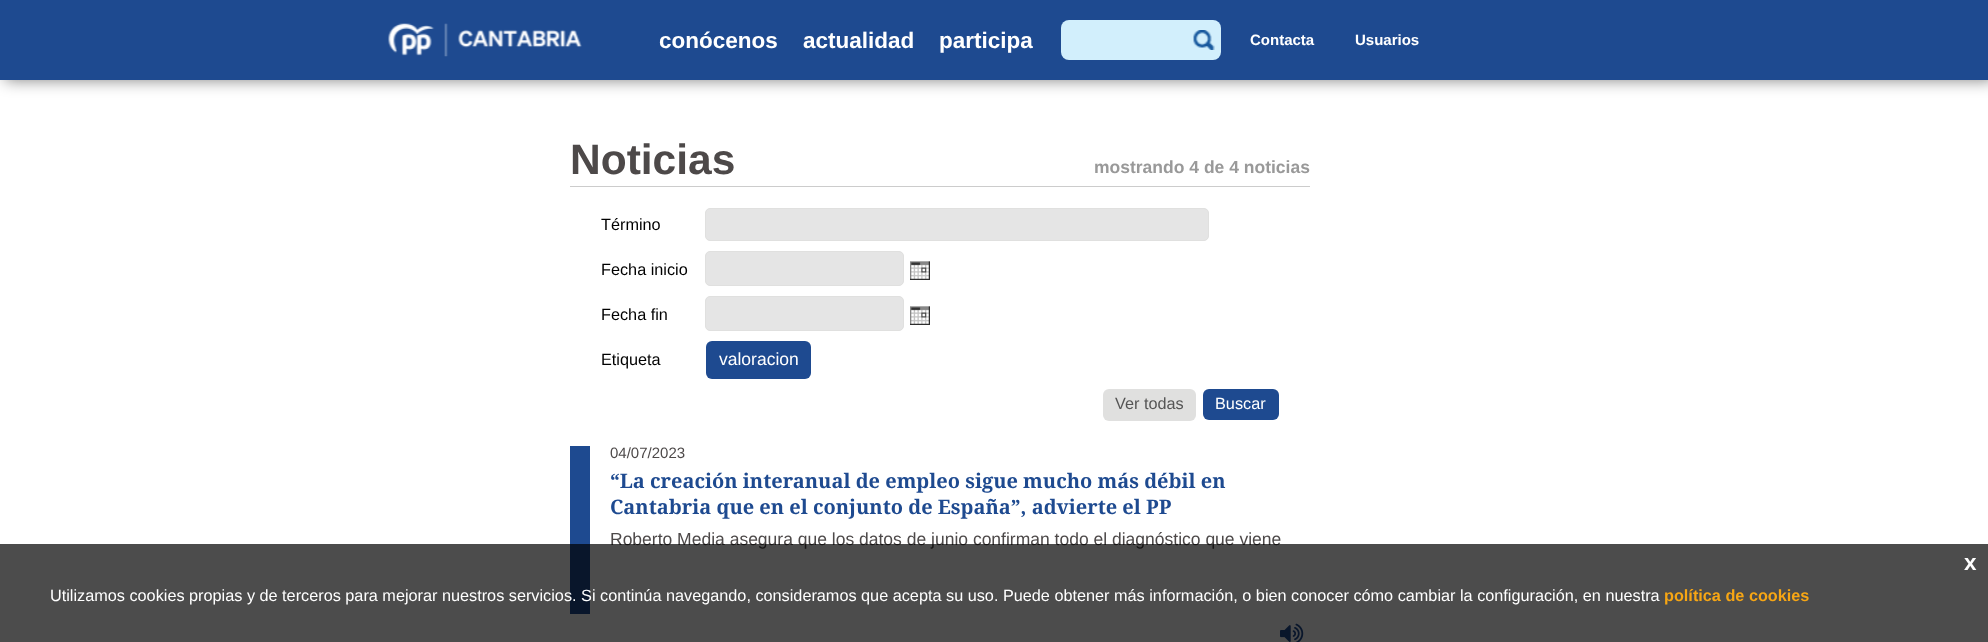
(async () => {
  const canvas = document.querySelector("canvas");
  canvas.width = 1988;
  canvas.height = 642;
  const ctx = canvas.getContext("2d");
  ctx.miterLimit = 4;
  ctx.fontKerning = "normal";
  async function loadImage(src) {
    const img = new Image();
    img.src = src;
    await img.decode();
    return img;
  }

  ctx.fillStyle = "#ffffff";
  ctx.fillRect(0, 0, 1988, 642);
  ctx.fillStyle = "rgba(0, 0, 0, 0.5)";
  ctx.filter = "blur(8px)";
  ctx.beginPath();
  ctx.rect(5, 0, 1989, 80);
  ctx.fill();
  ctx.filter = "none";
  ctx.fillStyle = "#1e4a90";
  ctx.fillRect(0, 0, 1988, 80);
  ctx.drawImage(await loadImage("img/1.png"), 388, 23, 194, 34);
  ctx.fillStyle = "#d2effc";
  ctx.beginPath();
  ctx.roundRect(1061, 20, 160, 40, 8);
  ctx.fill();
  ctx.drawImage(await loadImage("img/2.png"), 1193, 30, 22, 20);
  ctx.fillStyle = "#cccccc";
  ctx.fillRect(570, 186, 740, 1);
  ctx.fillStyle = "#e5e5e5";
  ctx.beginPath();
  ctx.roundRect(705.5, 208.5, 503, 32, 4.5);
  ctx.fill();
  ctx.strokeStyle = "#e0e0df";
  ctx.stroke();
  ctx.beginPath();
  ctx.roundRect(705.5, 251.5, 198, 34, 4.5);
  ctx.fill();
  ctx.stroke();
  ctx.drawImage(await loadImage("img/3.png"), 910, 261, 20, 19);
  ctx.beginPath();
  ctx.roundRect(705.5, 296.5, 198, 34, 4.5);
  ctx.fill();
  ctx.stroke();
  ctx.drawImage(await loadImage("img/3.png"), 910, 306, 20, 19);
  ctx.fillStyle = "#1e4a90";
  ctx.beginPath();
  ctx.roundRect(706, 341, 105, 38, 6);
  ctx.fill();
  ctx.fillStyle = "#e0e0df";
  ctx.beginPath();
  ctx.roundRect(1103, 389, 93, 32, 6);
  ctx.fill();
  ctx.fillStyle = "#1e4a90";
  ctx.beginPath();
  ctx.roundRect(1203, 389, 76, 31, 6);
  ctx.fill();
  ctx.fillRect(570, 446, 20, 168);
  ctx.drawImage(await loadImage("img/4.png"), 1280, 623, 24, 19);
  ctx.font = "bold 22.5px Liberation Sans";
  ctx.fillStyle = "#ffffff";
  for (const [text, x, y] of [
    ["conócenos", 659, 48],
    ["actualidad", 803, 48],
    ["participa", 939, 48],
  ]) {
    ctx.fillText(text, x, y);
  }
  ctx.font = "bold 15px Liberation Sans";
  ctx.fillText("Contacta", 1250, 45);
  ctx.fillText("Usuarios", 1355, 45);
  ctx.font = "bold 42.5px Liberation Sans";
  ctx.fillStyle = "#4d4949";
  ctx.fillText("Noticias", 570, 174);
  ctx.font = "bold 17.5px Liberation Sans";
  ctx.fillStyle = "#999999";
  ctx.fillText("mostrando 4 de 4 noticias", 1094, 173);
  ctx.font = "16.25px Liberation Sans";
  ctx.fillStyle = "#000000";
  for (const [text, x, y] of [
    ["Término", 601, 230],
    ["Fecha inicio", 601, 275],
    ["Fecha fin", 601, 320],
    ["Etiqueta", 601, 365],
  ]) {
    ctx.fillText(text, x, y);
  }
  ctx.font = "17.5px Liberation Sans";
  ctx.fillStyle = "#ffffff";
  ctx.fillText("valoracion", 719, 365);
  ctx.font = "16.25px Liberation Sans";
  ctx.fillStyle = "#555555";
  ctx.fillText("Ver todas", 1115, 409);
  ctx.fillStyle = "#ffffff";
  ctx.fillText("Buscar", 1215, 409);
  ctx.font = "15px Liberation Sans";
  ctx.fillStyle = "#4d4949";
  ctx.fillText("04/07/2023", 610, 458);
  ctx.font = "bold 20px Droid Serif";
  ctx.fillStyle = "#1e4a90";
  ctx.fillText("“La creación interanual de empleo sigue mucho más débil en", 610, 488);
  ctx.fillText("Cantabria que en el conjunto de España”, advierte el PP", 610, 514);
  ctx.font = "17.5px Liberation Sans";
  ctx.fillStyle = "#4d4949";
  ctx.fillText("Roberto Media asegura que los datos de junio confirman todo el diagnóstico que viene", 610, 545);
  ctx.fillStyle = "rgba(0, 0, 0, 0.7)";
  ctx.fillRect(0, 544, 1988, 98);
  ctx.font = "bold 22.5px Liberation Sans";
  ctx.fillStyle = "#ffffff";
  ctx.fillText("x", 1964, 570);
  ctx.font = "16.25px Liberation Sans";
  ctx.fillText("Utilizamos cookies propias y de terceros para mejorar nuestros servicios. Si continúa navegando, consideramos que acepta su uso. Puede obtener más información, o bien conocer cómo cambiar la configuración, en nuestra", 50, 601);
  ctx.font = "bold 16.25px Liberation Sans";
  ctx.fillStyle = "#f7a614";
  ctx.fillText("política de cookies", 1664, 601);
})();
